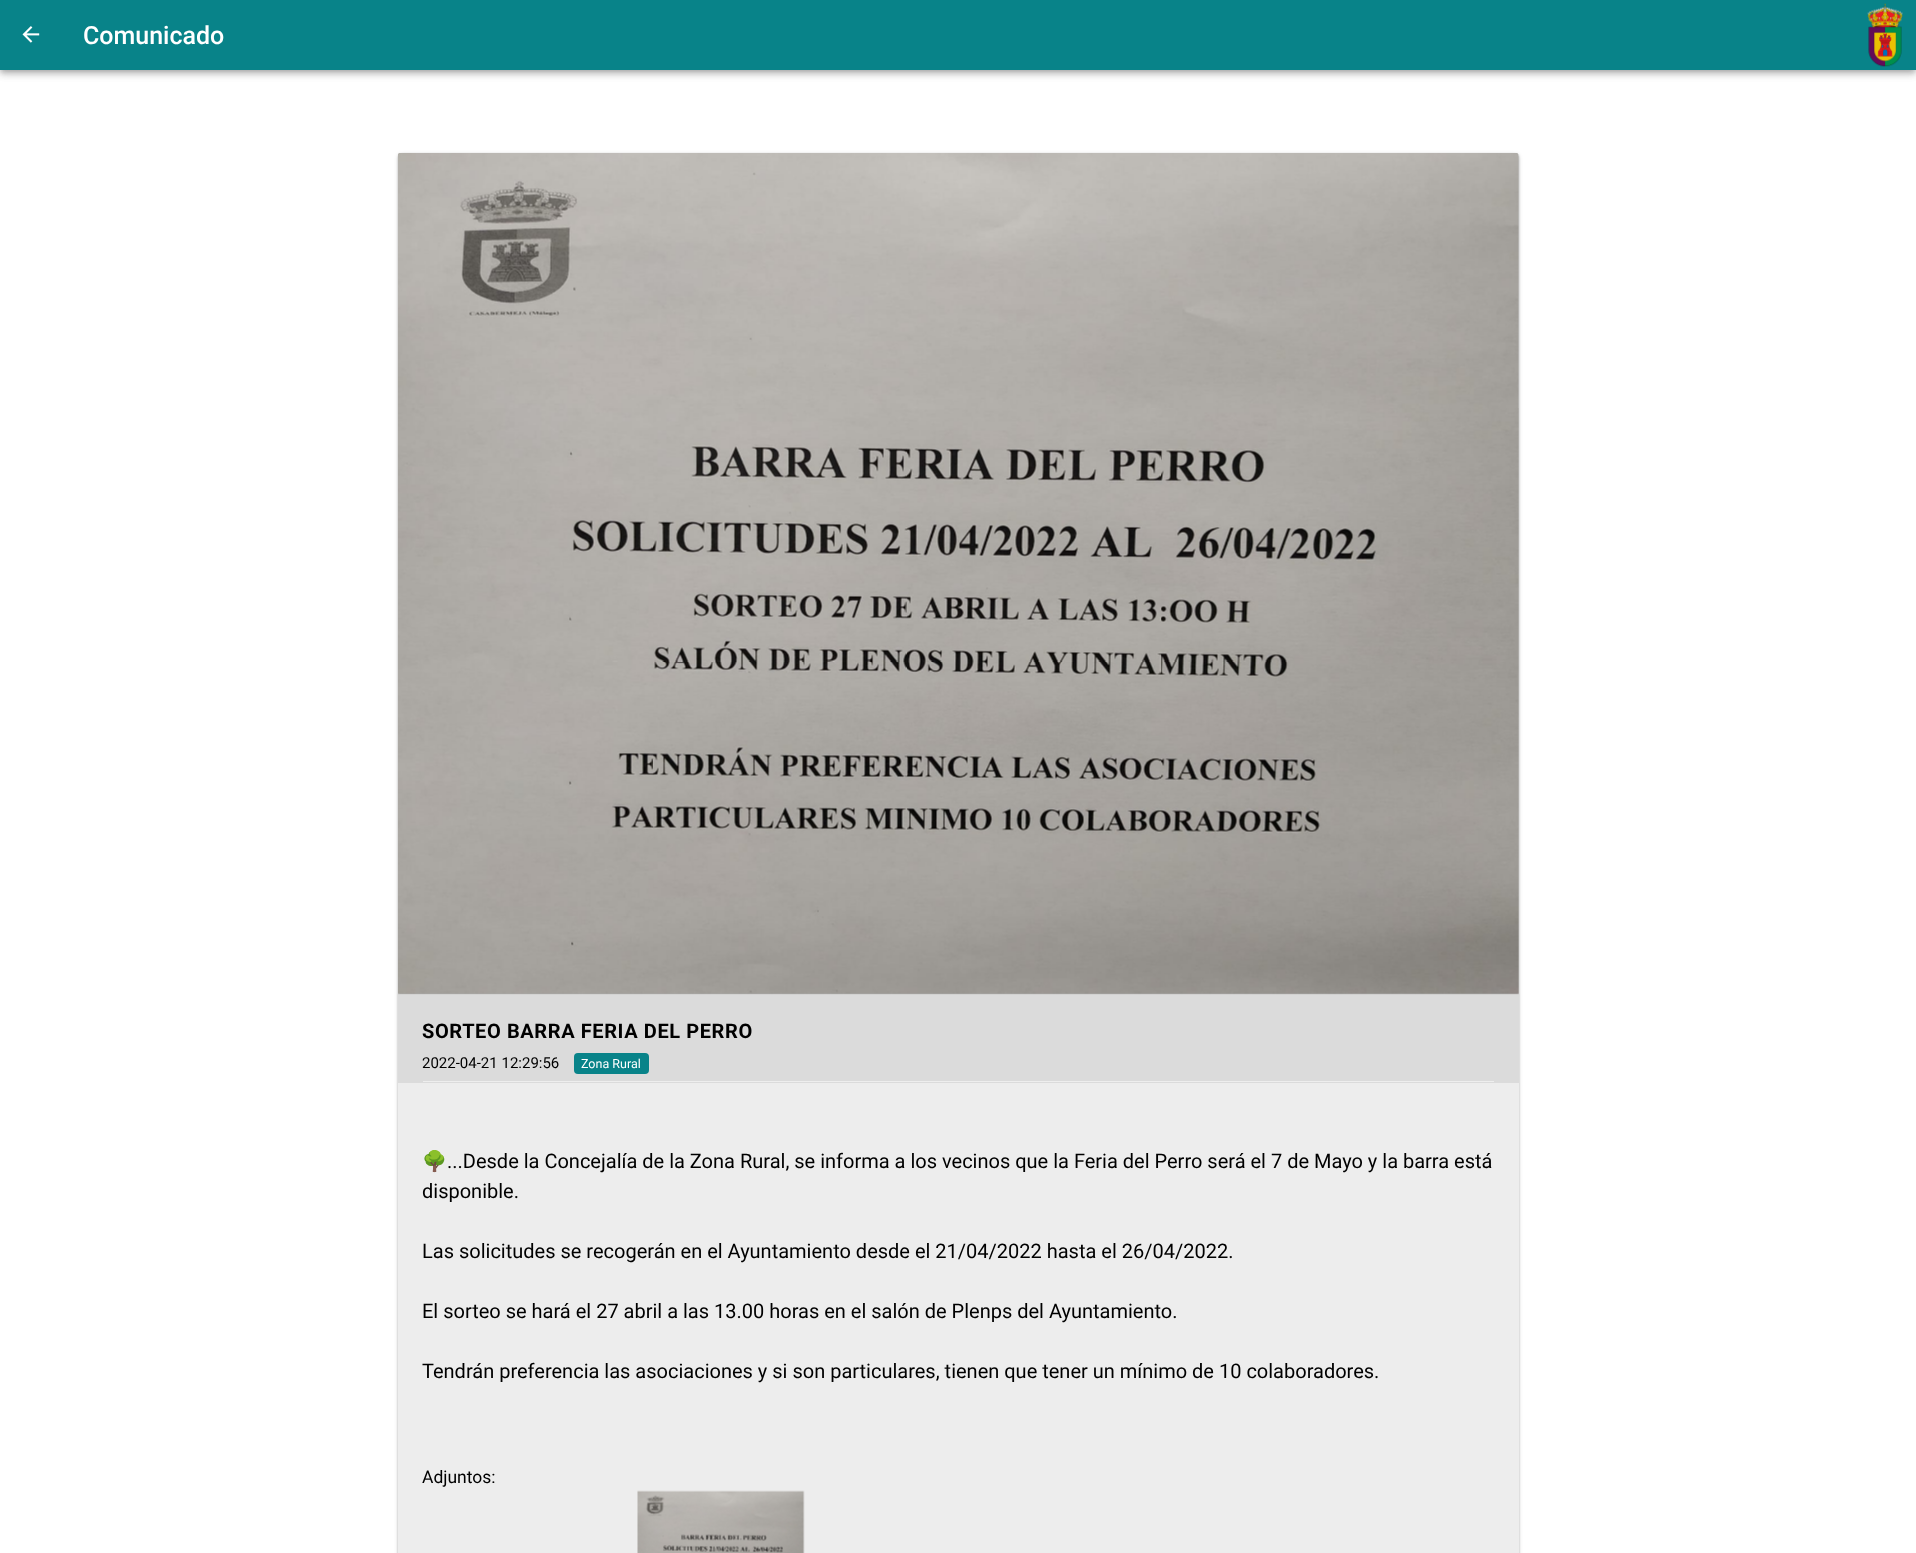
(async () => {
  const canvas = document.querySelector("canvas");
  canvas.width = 1916;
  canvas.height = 1553;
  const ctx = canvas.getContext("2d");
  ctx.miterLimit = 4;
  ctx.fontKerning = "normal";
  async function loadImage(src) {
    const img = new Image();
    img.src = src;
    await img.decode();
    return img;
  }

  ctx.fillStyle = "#ffffff";
  ctx.fillRect(0, 0, 1916, 1553);
  ctx.fillStyle = "rgba(0, 0, 0, 0.12)";
  ctx.filter = "blur(6px)";
  ctx.beginPath();
  ctx.rect(0, 1, 1916, 70);
  ctx.fill();
  ctx.filter = "none";
  ctx.fillStyle = "rgba(0, 0, 0, 0.14)";
  ctx.filter = "blur(3px)";
  ctx.beginPath();
  ctx.rect(0, 5, 1916, 70);
  ctx.fill();
  ctx.filter = "none";
  ctx.fillStyle = "rgba(0, 0, 0, 0.2)";
  ctx.filter = "blur(2.5px)";
  ctx.beginPath();
  ctx.rect(1, 4, 1914, 67);
  ctx.fill();
  ctx.filter = "none";
  ctx.fillStyle = "#088389";
  ctx.fillRect(0, 0, 1916, 70);
  ctx.drawImage(await loadImage("img/1.png"), 22, 26, 18, 17);
  ctx.drawImage(await loadImage("img/2.png"), 1867, 3, 36, 64);
  ctx.fillStyle = "rgba(0, 0, 0, 0.24)";
  ctx.filter = "blur(1px)";
  ctx.beginPath();
  ctx.roundRect(398, 154, 1121, 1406, 4);
  ctx.fill();
  ctx.filter = "none";
  ctx.fillStyle = "rgba(0, 0, 0, 0.12)";
  ctx.filter = "blur(2px)";
  ctx.beginPath();
  ctx.roundRect(398, 154, 1121, 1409, 4);
  ctx.fill();
  ctx.filter = "none";
  ctx.fillStyle = "#dbdbdb";
  ctx.fillRect(398, 994, 1121, 89);
  ctx.drawImage(await loadImage("img/3.png"), 398, 153, 1121, 842);
  ctx.fillStyle = "#ededed";
  ctx.fillRect(398, 1083, 1121, 470);
  ctx.fillStyle = "#088389";
  ctx.beginPath();
  ctx.roundRect(574, 1053, 75, 21, 4);
  ctx.fill();
  ctx.fillStyle = "#eeeeee";
  ctx.fillRect(423, 1081, 1071, 1);
  ctx.drawImage(await loadImage("img/4.png"), 637, 1490, 168, 63);
  ctx.font = "500 25px Roboto";
  ctx.fillStyle = "#ffffff";
  ctx.fillText("Comunicado", 83, 44);
  ctx.letterSpacing = "0.6px";
  ctx.font = "bold 20px Roboto";
  ctx.fillStyle = "#000000";
  ctx.fillText("SORTEO BARRA FERIA DEL PERRO", 422, 1038);
  ctx.letterSpacing = "0px";
  ctx.font = "15px Roboto";
  ctx.fillText("2022-04-21 12:29:56", 422, 1068);
  ctx.font = "12.5px Roboto";
  ctx.fillStyle = "#ffffff";
  ctx.fillText("Zona Rural", 581, 1068);
  ctx.font = "20px Noto Color Emoji";
  ctx.fillStyle = "#000000";
  ctx.fillText("🌳", 422, 1168);
  ctx.font = "20px Roboto";
  for (const [text, x, y] of [
    ["...Desde la Concejalía de la Zona Rural, se informa a los vecinos que la Feria del Perro será el 7 de Mayo y la barra está", 447, 1168],
    ["disponible.", 422, 1198],
    ["Las solicitudes se recogerán en el Ayuntamiento desde el 21/04/2022 hasta el 26/04/2022.", 422, 1258],
    ["El sorteo se hará el 27 abril a las 13.00 horas en el salón de Plenps del Ayuntamiento.", 422, 1318],
    ["Tendrán preferencia las asociaciones y si son particulares, tienen que tener un mínimo de 10 colaboradores.", 422, 1378],
  ]) {
    ctx.fillText(text, x, y);
  }
  ctx.font = "17.5px Roboto";
  ctx.fillText("Adjuntos:", 422, 1483);
})();
